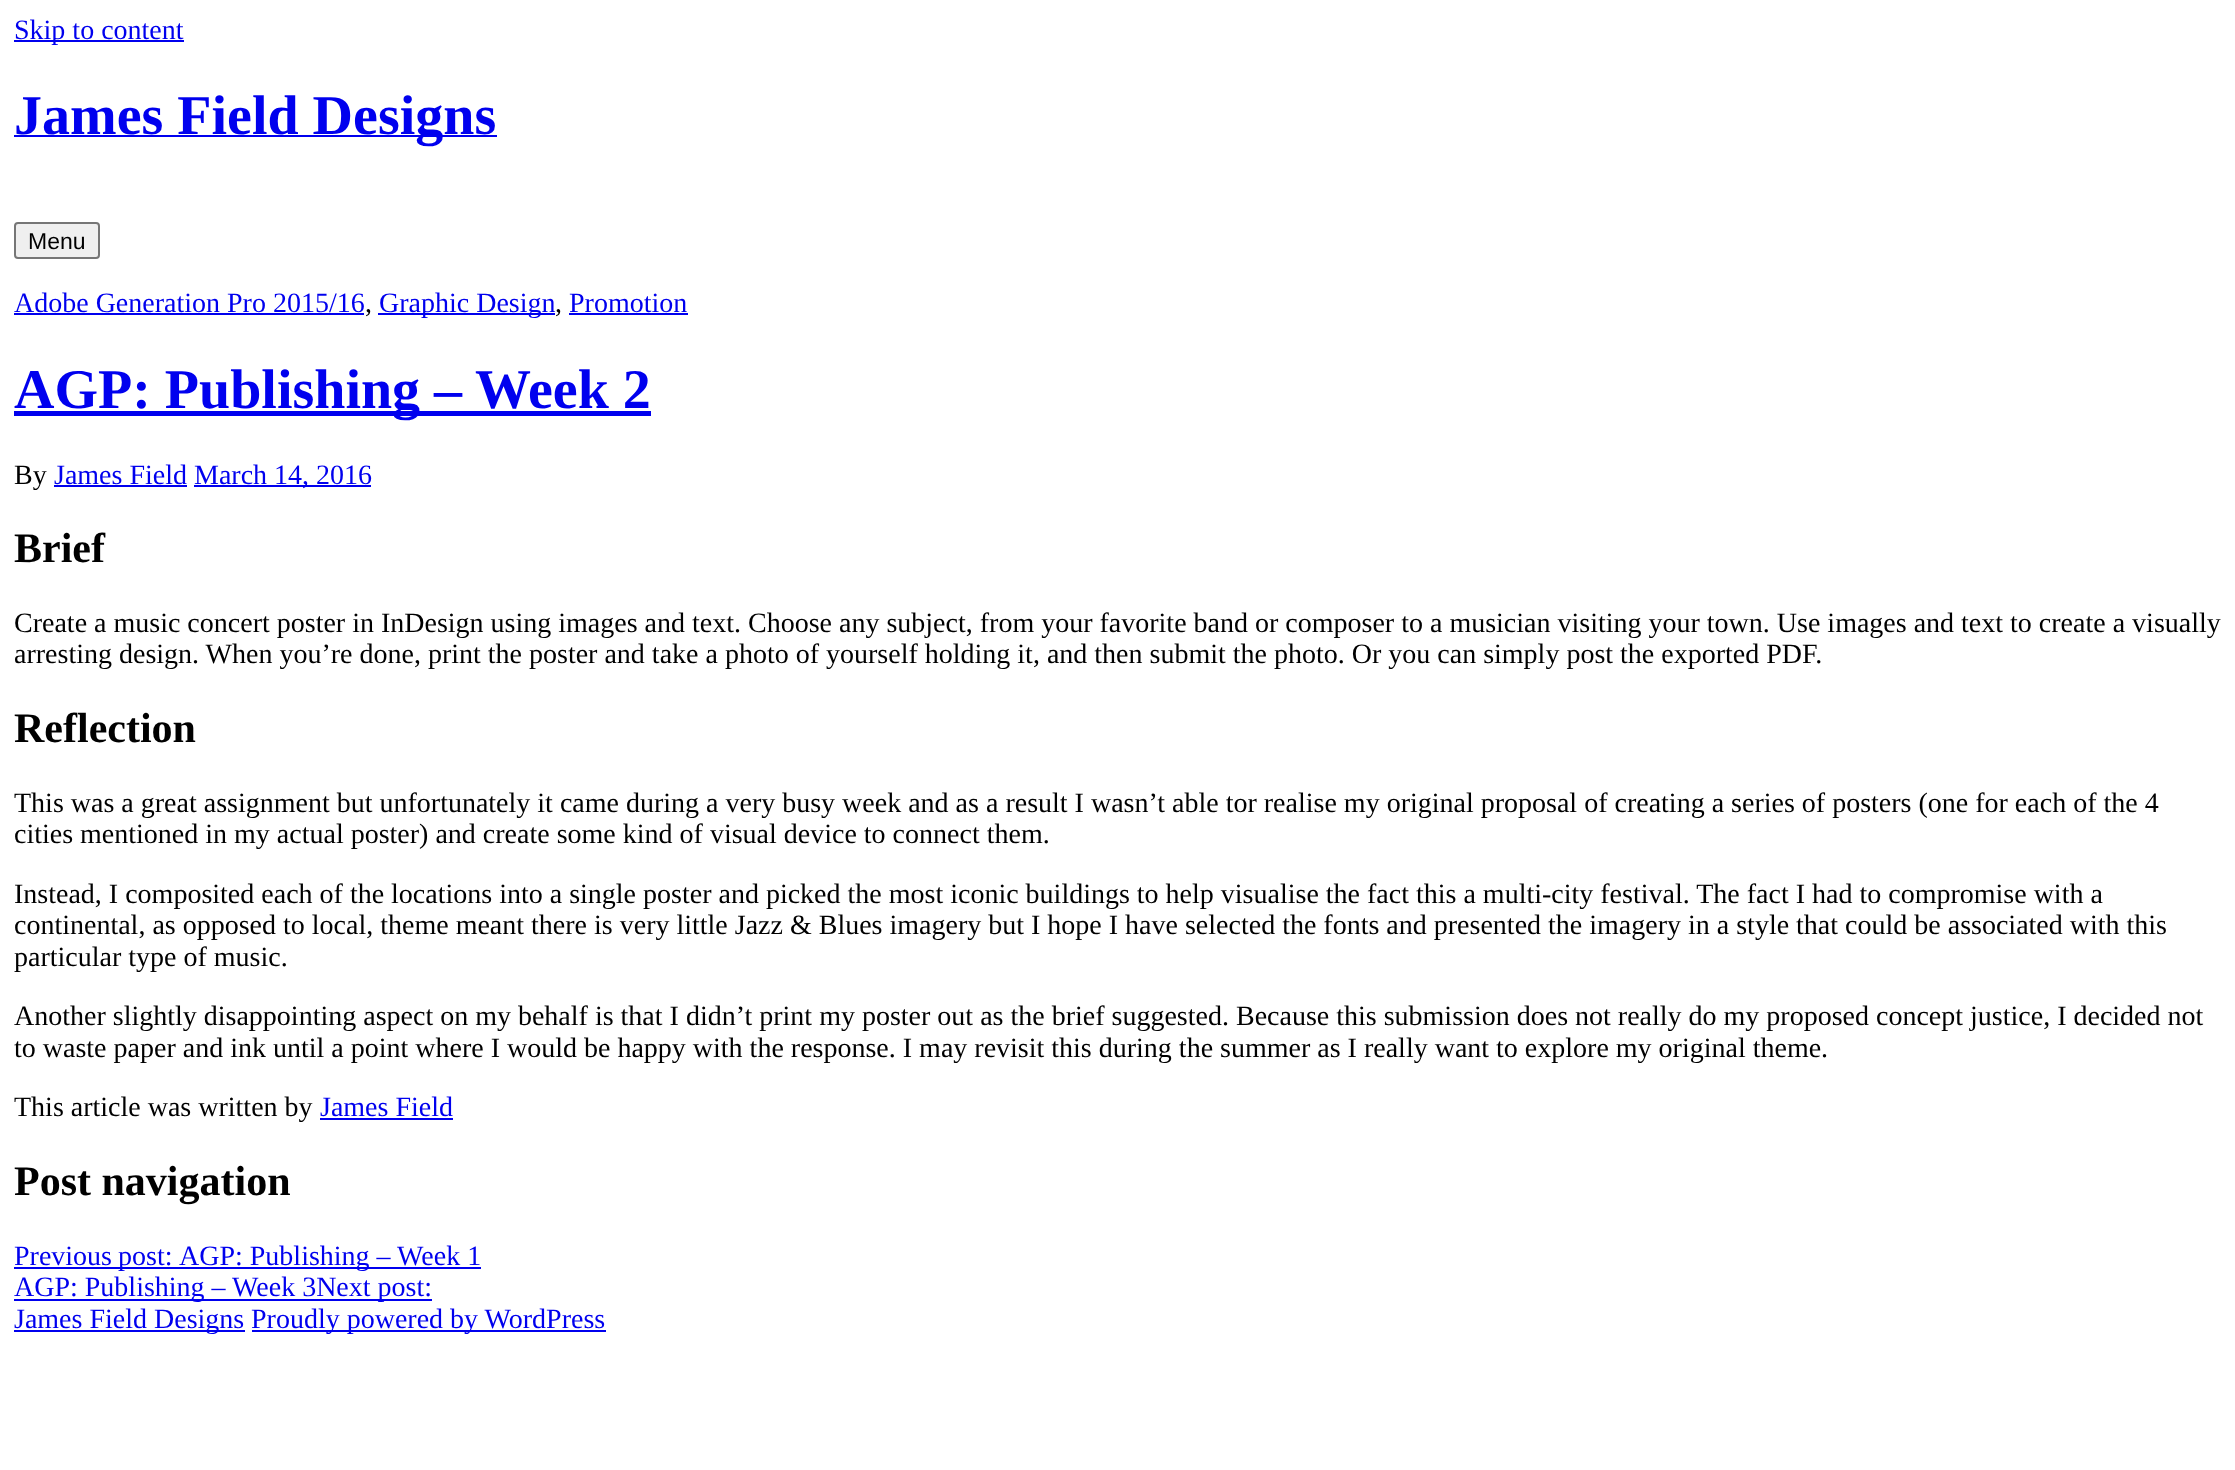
(async () => {
  const canvas = document.querySelector("canvas");
  canvas.width = 2235;
  canvas.height = 1470;
  const ctx = canvas.getContext("2d");
  ctx.miterLimit = 4;
  ctx.fontKerning = "normal";

  ctx.fillStyle = "#ffffff";
  ctx.fillRect(0, 0, 2235, 1470);
  ctx.fillStyle = "#0000ee";
  ctx.fillRect(14, 40, 170, 2);
  ctx.fillRect(14, 135, 483, 2);
  ctx.fillStyle = "#efefef";
  ctx.beginPath();
  ctx.roundRect(15, 223, 84, 35, 3);
  ctx.fill();
  ctx.strokeStyle = "#767676";
  ctx.lineWidth = 2;
  ctx.stroke();
  for (const [x, y, w, h, color] of [
    [14, 313, 350, 2, "#0000ee"],
    [378, 313, 177, 2, "#0000ee"],
    [569, 313, 119, 2, "#0000ee"],
    [14, 411, 637, 5, "#0000ee"],
    [54, 485, 133, 2, "#0000ee"],
    [194, 485, 177, 2, "#0000ee"],
    [320, 1118, 133, 2, "#0000ee"],
    [14, 1267, 467, 2, "#0000ee"],
    [14, 1299, 418, 2, "#0000ee"],
    [14, 1330, 231, 2, "#0000ee"],
    [252, 1330, 354, 2, "#0000ee"],
  ]) {
    ctx.fillStyle = color;
    ctx.fillRect(x, y, w, h);
  }
  ctx.font = "28px Liberation Serif";
  ctx.fillText("Skip to content", 14, 39);
  ctx.font = "bold 56px Liberation Serif";
  ctx.fillText("James Field Designs", 14, 134);
  ctx.font = "23px Liberation Sans";
  ctx.fillStyle = "#000000";
  ctx.fillText("Menu", 28, 249);
  ctx.font = "28px Liberation Serif";
  ctx.fillStyle = "#0000ee";
  ctx.fillText("Adobe Generation Pro 2015/16", 14, 312);
  ctx.fillStyle = "#000000";
  ctx.fillText(",", 365, 312);
  ctx.fillStyle = "#0000ee";
  ctx.fillText("Graphic Design", 379, 312);
  ctx.fillStyle = "#000000";
  ctx.fillText(",", 555, 312);
  ctx.fillStyle = "#0000ee";
  ctx.fillText("Promotion", 569, 312);
  ctx.font = "bold 56px Liberation Serif";
  ctx.fillText("AGP: Publishing – Week 2", 14, 408);
  ctx.font = "28px Liberation Serif";
  ctx.fillStyle = "#000000";
  ctx.fillText("By", 14, 484);
  ctx.fillStyle = "#0000ee";
  ctx.fillText("James Field", 54, 484);
  ctx.fillText("March 14, 2016", 194, 484);
  ctx.font = "bold 42px Liberation Serif";
  ctx.fillStyle = "#000000";
  ctx.fillText("Brief", 14, 562);
  ctx.font = "28px Liberation Serif";
  ctx.fillText("Create a music concert poster in InDesign using images and text. Choose any subject, from your favorite band or composer to a musician visiting your town. Use images and text to create a visually", 14, 632);
  ctx.fillText("arresting design. When you’re done, print the poster and take a photo of yourself holding it, and then submit the photo. Or you can simply post the exported PDF.", 14, 663);
  ctx.font = "bold 42px Liberation Serif";
  ctx.fillText("Reflection", 14, 742);
  ctx.font = "28px Liberation Serif";
  for (const [text, x, y] of [
    ["This was a great assignment but unfortunately it came during a very busy week and as a result I wasn’t able tor realise my original proposal of creating a series of posters (one for each of the 4", 14, 812],
    ["cities mentioned in my actual poster) and create some kind of visual device to connect them.", 14, 843],
    ["Instead, I composited each of the locations into a single poster and picked the most iconic buildings to help visualise the fact this a multi-city festival. The fact I had to compromise with a", 14, 903],
    ["continental, as opposed to local, theme meant there is very little Jazz & Blues imagery but I hope I have selected the fonts and presented the imagery in a style that could be associated with this", 14, 934],
    ["particular type of music.", 14, 966],
    ["Another slightly disappointing aspect on my behalf is that I didn’t print my poster out as the brief suggested. Because this submission does not really do my proposed concept justice, I decided not", 14, 1025],
    ["to waste paper and ink until a point where I would be happy with the response. I may revisit this during the summer as I really want to explore my original theme.", 14, 1057],
    ["This article was written by", 14, 1116],
  ]) {
    ctx.fillText(text, x, y);
  }
  ctx.fillStyle = "#0000ee";
  ctx.fillText("James Field", 320, 1116);
  ctx.font = "bold 42px Liberation Serif";
  ctx.fillStyle = "#000000";
  ctx.fillText("Post navigation", 14, 1195);
  ctx.wordSpacing = "-1px";
  ctx.font = "28px Liberation Serif";
  ctx.fillStyle = "#0000ee";
  ctx.fillText("Previous post:", 14, 1265);
  ctx.wordSpacing = "0px";
  for (const [text, x, y] of [
    ["AGP: Publishing – Week 1", 179, 1265],
    ["AGP: Publishing – Week 3Next post:", 14, 1296],
    ["James Field Designs", 14, 1328],
    ["Proudly powered by WordPress", 251, 1328],
  ]) {
    ctx.fillText(text, x, y);
  }
})();
